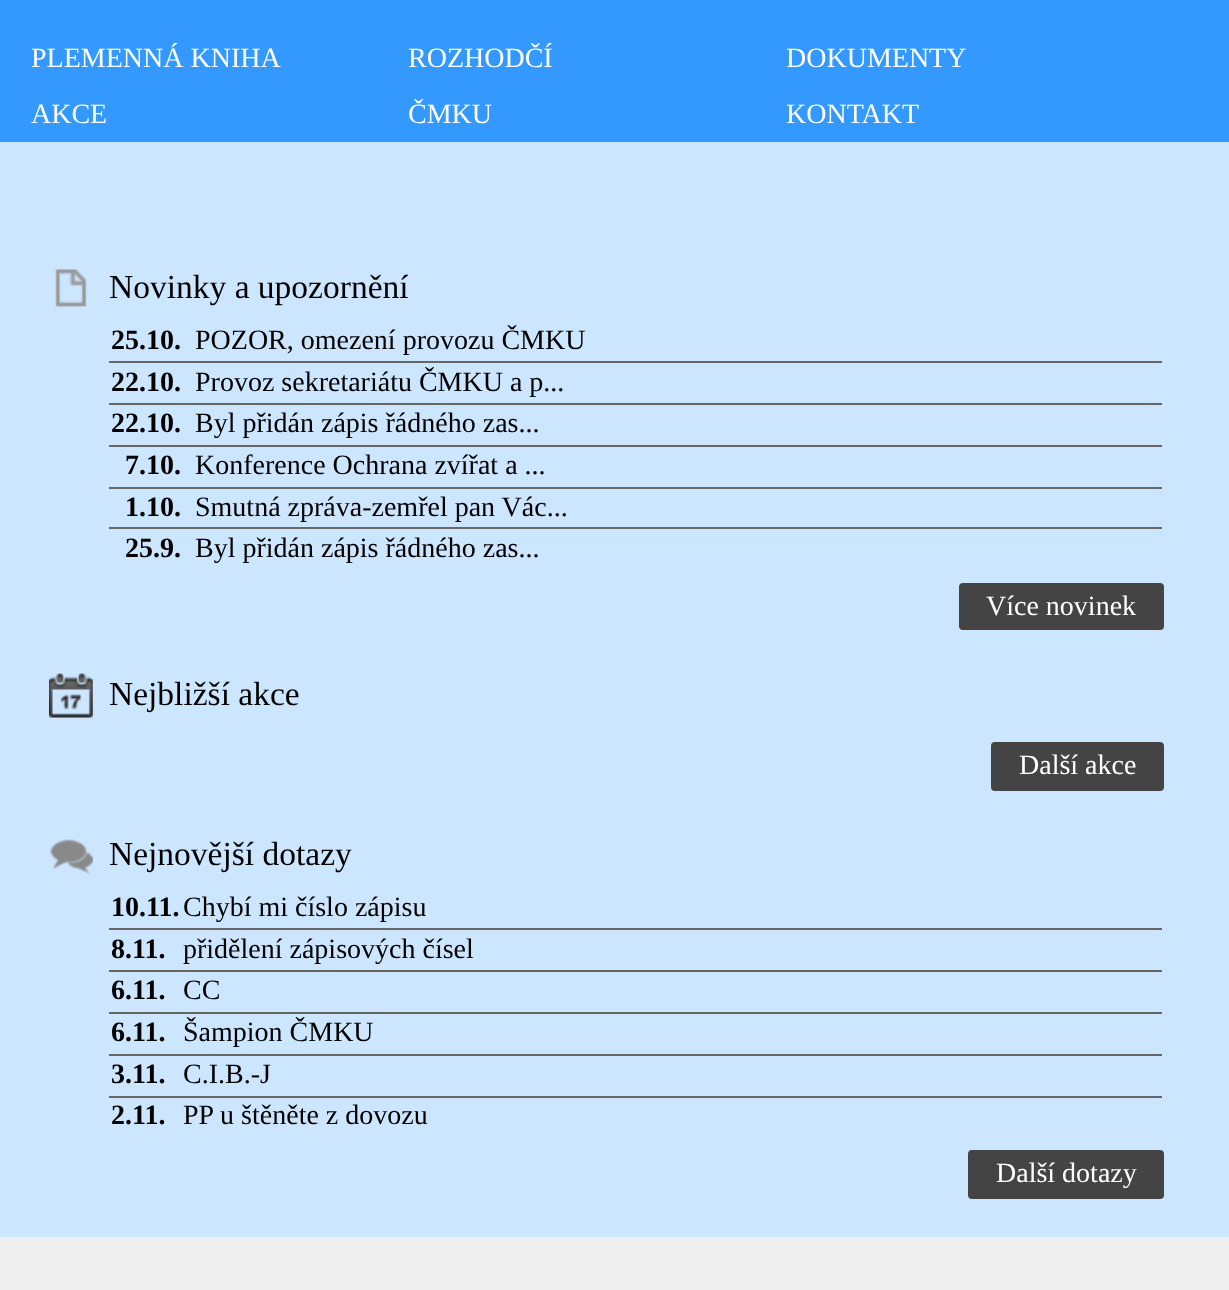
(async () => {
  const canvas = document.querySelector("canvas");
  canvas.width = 1229;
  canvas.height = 1290;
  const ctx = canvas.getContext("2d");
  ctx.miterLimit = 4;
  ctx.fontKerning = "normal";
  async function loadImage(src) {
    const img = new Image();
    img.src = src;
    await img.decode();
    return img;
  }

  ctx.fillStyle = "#3399ff";
  ctx.fillRect(0, 0, 1229, 1290);
  ctx.fillStyle = "#cce6ff";
  ctx.fillRect(0, 142, 1229, 1095);
  ctx.drawImage(await loadImage("img/1.png"), 55, 269, 32, 38);
  for (const [x, y, w, h, color] of [
    [109, 361, 1053, 2, "#666666"],
    [109, 403, 1053, 2, "#666666"],
    [109, 445, 1053, 2, "#666666"],
    [109, 487, 1053, 2, "#666666"],
    [109, 527, 1053, 2, "#666666"],
  ]) {
    ctx.fillStyle = color;
    ctx.fillRect(x, y, w, h);
  }
  ctx.fillStyle = "#444444";
  ctx.beginPath();
  ctx.roundRect(959, 583, 205, 47, 4);
  ctx.fill();
  ctx.drawImage(await loadImage("img/2.png"), 49, 673, 44, 45);
  ctx.beginPath();
  ctx.roundRect(991, 742, 173, 49, 4);
  ctx.fill();
  ctx.drawImage(await loadImage("img/3.png"), 50, 839, 43, 35);
  for (const [x, y, w, h, color] of [
    [109, 928, 1053, 2, "#666666"],
    [109, 970, 1053, 2, "#666666"],
    [109, 1012, 1053, 2, "#666666"],
    [109, 1054, 1053, 2, "#666666"],
    [109, 1096, 1053, 2, "#666666"],
  ]) {
    ctx.fillStyle = color;
    ctx.fillRect(x, y, w, h);
  }
  ctx.fillStyle = "#444444";
  ctx.beginPath();
  ctx.roundRect(968, 1150, 196, 49, 4);
  ctx.fill();
  ctx.fillStyle = "#efefef";
  ctx.fillRect(0, 1237, 1229, 53);
  ctx.font = "28px Liberation Serif";
  ctx.fillStyle = "#ffffff";
  for (const [text, x, y] of [
    ["PLEMENNÁ KNIHA", 31, 67],
    ["ROZHODČÍ", 408, 67],
    ["DOKUMENTY", 786, 67],
    ["AKCE", 31, 123],
    ["ČMKU", 408, 123],
    ["KONTAKT", 786, 123],
  ]) {
    ctx.fillText(text, x, y);
  }
  ctx.font = "33.5px Liberation Serif";
  ctx.fillStyle = "#000000";
  ctx.fillText("Novinky a upozornění", 109, 298);
  ctx.font = "bold 28px Liberation Serif";
  ctx.fillText("25.10.", 111, 349);
  ctx.font = "28px Liberation Serif";
  ctx.fillText("POZOR, omezení provozu ČMKU", 195, 349);
  ctx.font = "bold 28px Liberation Serif";
  ctx.fillText("22.10.", 111, 391);
  ctx.font = "28px Liberation Serif";
  ctx.fillText("Provoz sekretariátu ČMKU a p...", 195, 391);
  ctx.font = "bold 28px Liberation Serif";
  ctx.fillText("22.10.", 111, 432);
  ctx.font = "28px Liberation Serif";
  ctx.fillText("Byl přidán zápis řádného zas...", 195, 432);
  ctx.font = "bold 28px Liberation Serif";
  ctx.fillText("7.10.", 125, 474);
  ctx.font = "28px Liberation Serif";
  ctx.fillText("Konference Ochrana zvířat a ...", 195, 474);
  ctx.font = "bold 28px Liberation Serif";
  ctx.fillText("1.10.", 125, 516);
  ctx.font = "28px Liberation Serif";
  ctx.fillText("Smutná zpráva-zemřel pan Vác...", 195, 516);
  ctx.font = "bold 28px Liberation Serif";
  ctx.fillText("25.9.", 125, 557);
  ctx.font = "28px Liberation Serif";
  ctx.fillText("Byl přidán zápis řádného zas...", 195, 557);
  ctx.fillStyle = "#ffffff";
  ctx.fillText("Více novinek", 986, 615);
  ctx.font = "33.5px Liberation Serif";
  ctx.fillStyle = "#000000";
  ctx.fillText("Nejbližší akce", 109, 705);
  ctx.font = "28px Liberation Serif";
  ctx.fillStyle = "#ffffff";
  ctx.fillText("Další akce", 1019, 774);
  ctx.font = "33.5px Liberation Serif";
  ctx.fillStyle = "#000000";
  ctx.fillText("Nejnovější dotazy", 109, 865);
  ctx.font = "bold 28px Liberation Serif";
  ctx.fillText("10.11.", 111, 916);
  ctx.font = "28px Liberation Serif";
  ctx.fillText("Chybí mi číslo zápisu", 183, 916);
  ctx.font = "bold 28px Liberation Serif";
  ctx.fillText("8.11.", 111, 958);
  ctx.font = "28px Liberation Serif";
  ctx.fillText("přidělení zápisových čísel", 183, 958);
  ctx.font = "bold 28px Liberation Serif";
  ctx.fillText("6.11.", 111, 999);
  ctx.font = "28px Liberation Serif";
  ctx.fillText("CC", 183, 999);
  ctx.font = "bold 28px Liberation Serif";
  ctx.fillText("6.11.", 111, 1041);
  ctx.font = "28px Liberation Serif";
  ctx.fillText("Šampion ČMKU", 183, 1041);
  ctx.font = "bold 28px Liberation Serif";
  ctx.fillText("3.11.", 111, 1083);
  ctx.font = "28px Liberation Serif";
  ctx.fillText("C.I.B.-J", 183, 1083);
  ctx.font = "bold 28px Liberation Serif";
  ctx.fillText("2.11.", 111, 1124);
  ctx.font = "28px Liberation Serif";
  ctx.fillText("PP u štěněte z dovozu", 183, 1124);
  ctx.fillStyle = "#ffffff";
  ctx.fillText("Další dotazy", 996, 1182);
})();
